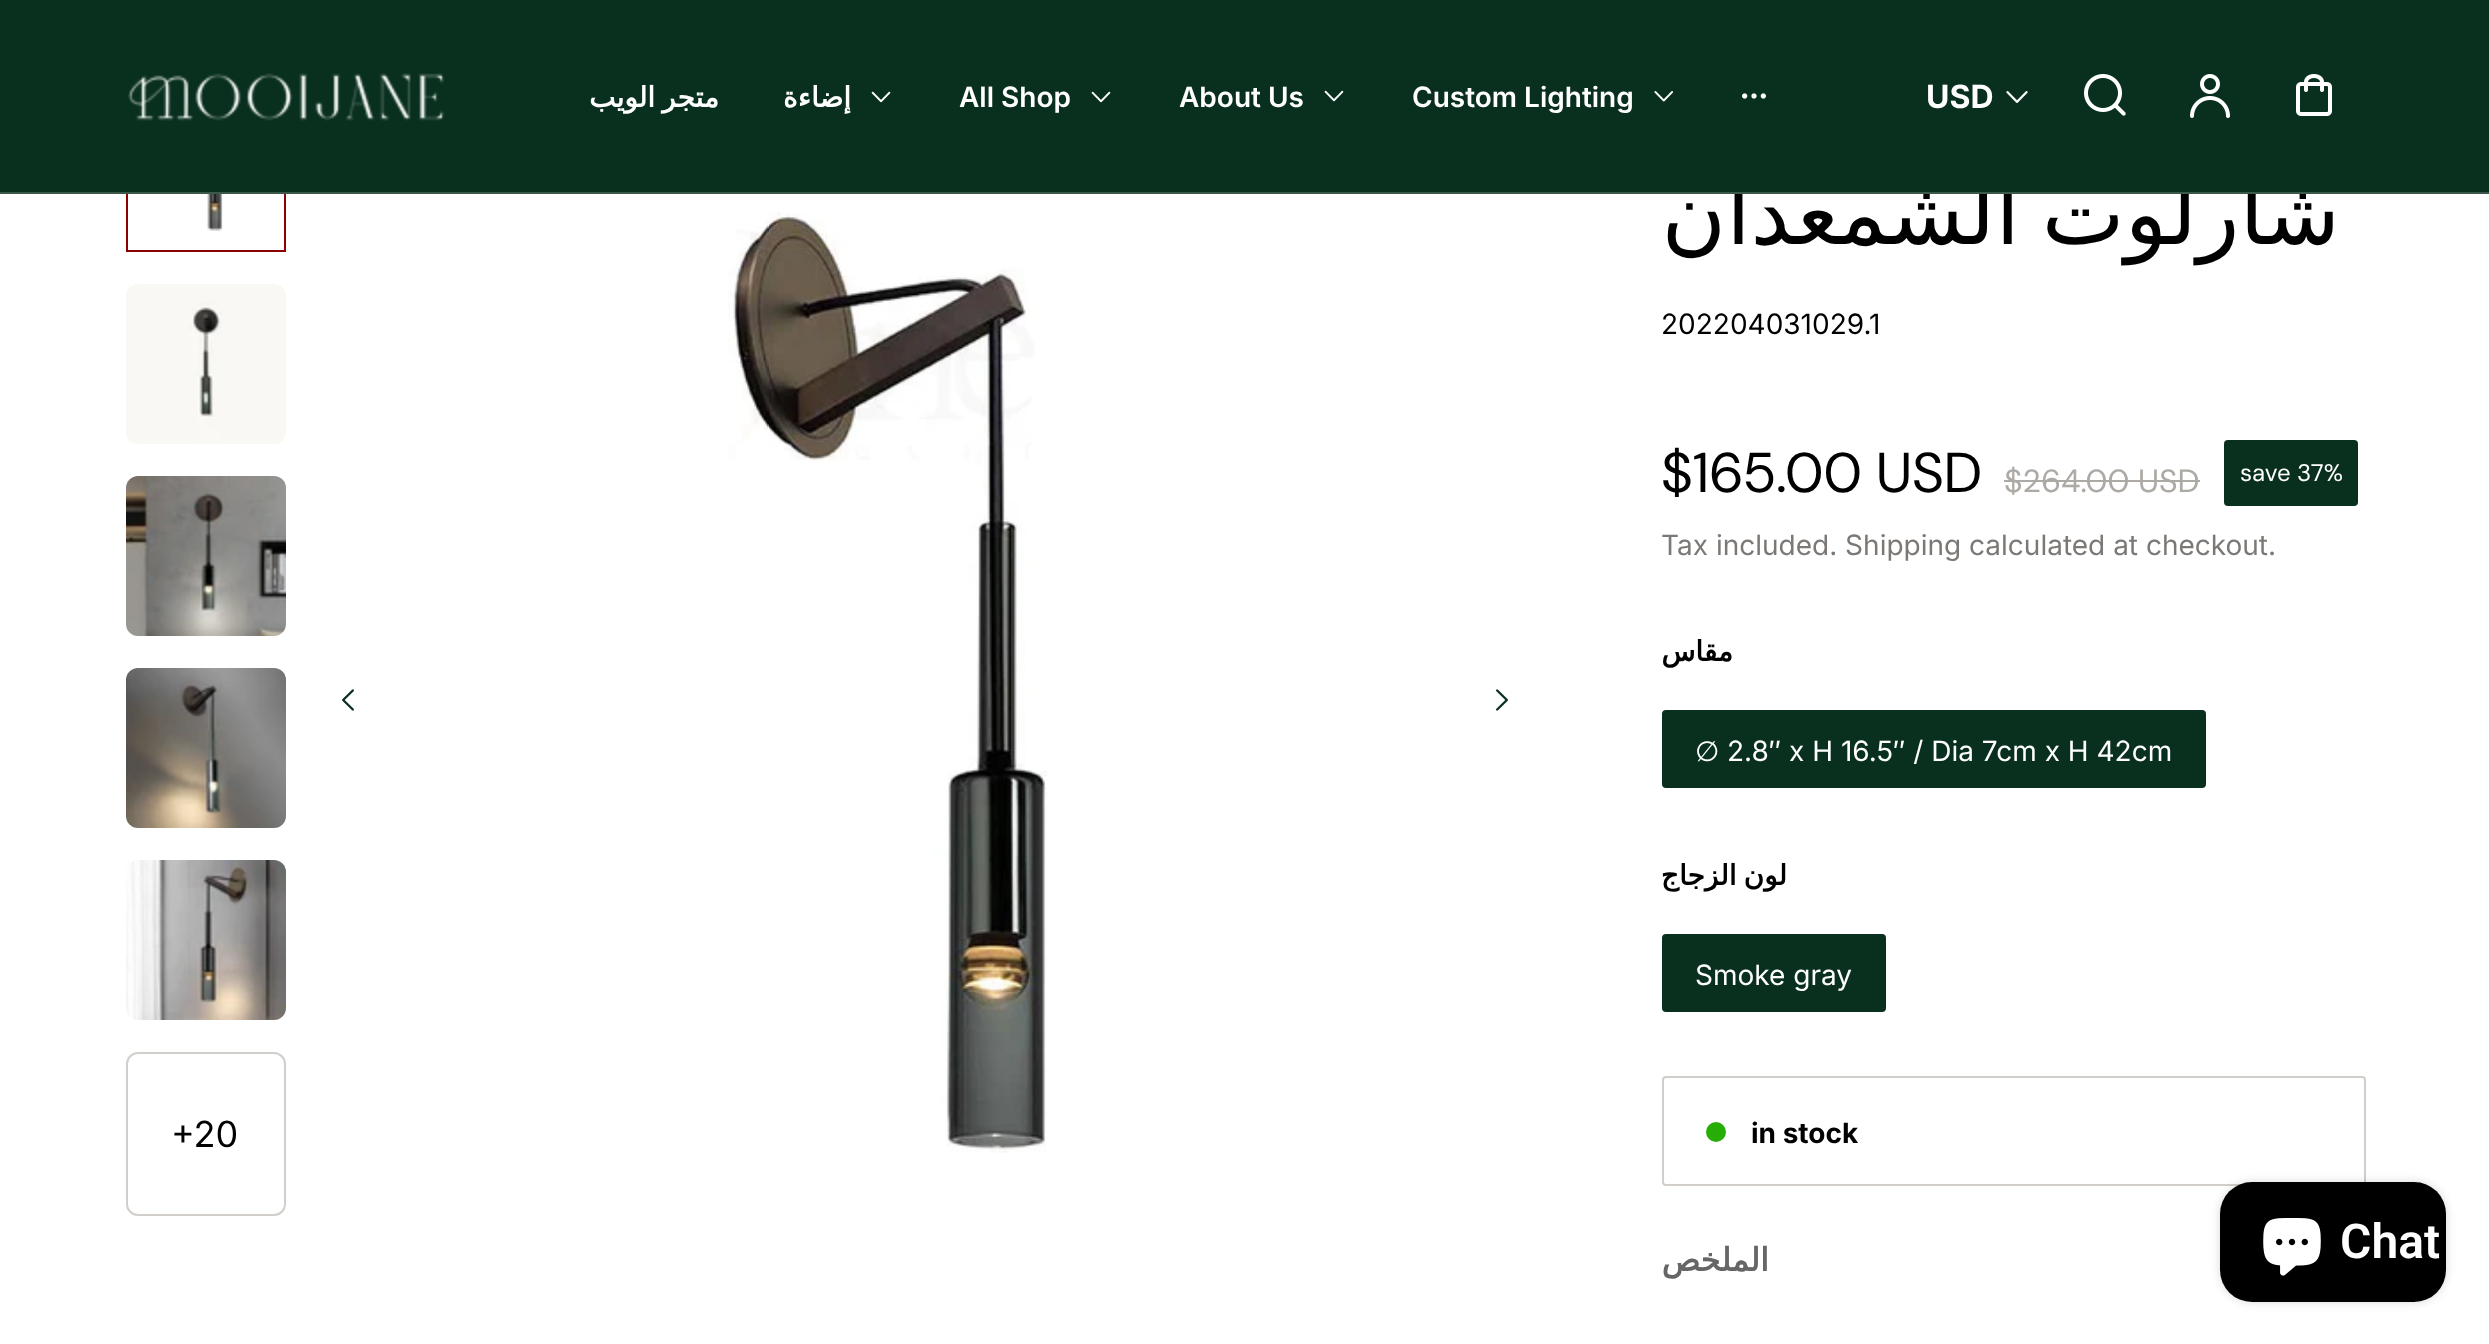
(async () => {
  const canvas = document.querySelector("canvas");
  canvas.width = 2489;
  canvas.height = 1344;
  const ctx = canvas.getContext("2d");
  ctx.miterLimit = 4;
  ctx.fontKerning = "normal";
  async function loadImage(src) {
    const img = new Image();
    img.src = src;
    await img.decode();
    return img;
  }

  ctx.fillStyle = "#ffffff";
  ctx.fillRect(0, 0, 2489, 1344);
  ctx.strokeStyle = "#8b0000";
  ctx.lineWidth = 2;
  ctx.strokeRect(127, 93, 158, 158);
  ctx.drawImage(await loadImage("img/11.png"), 175, 194, 48, 38);
  ctx.drawImage(await loadImage("img/12.png"), 126, 284, 160, 160);
  ctx.drawImage(await loadImage("img/13.png"), 126, 476, 160, 160);
  ctx.drawImage(await loadImage("img/14.png"), 126, 668, 160, 160);
  ctx.drawImage(await loadImage("img/15.png"), 126, 860, 160, 160);
  ctx.beginPath();
  ctx.roundRect(127, 1053, 158, 162, 11);
  ctx.strokeStyle = "#d2ceca";
  ctx.stroke();
  ctx.drawImage(await loadImage("img/16.png"), 728, 212, 319, 941);
  ctx.drawImage(await loadImage("img/17.png"), 342, 689, 12, 22);
  ctx.drawImage(await loadImage("img/18.png"), 1496, 689, 12, 22);
  ctx.fillStyle = "#ada9a5";
  ctx.fillRect(2004, 480, 196, 2);
  ctx.fillStyle = "#09301e";
  ctx.beginPath();
  ctx.roundRect(2224, 440, 134, 66, 4);
  ctx.fill();
  ctx.beginPath();
  ctx.roundRect(1663, 711, 542, 76, 3);
  ctx.fill();
  ctx.strokeStyle = "#09301e";
  ctx.stroke();
  ctx.beginPath();
  ctx.roundRect(1663, 935, 222, 76, 3);
  ctx.fill();
  ctx.stroke();
  ctx.beginPath();
  ctx.roundRect(1663, 1077, 702, 108, 3);
  ctx.strokeStyle = "#d2ceca";
  ctx.stroke();
  ctx.fillStyle = "#27ae06";
  ctx.beginPath();
  ctx.arc(1716, 1132, 10, 0, Math.PI * 2);
  ctx.fill();
  ctx.fillStyle = "rgba(0, 0, 0, 0.15)";
  ctx.filter = "blur(5px)";
  ctx.beginPath();
  ctx.roundRect(2220, 1182, 226, 120, 32);
  ctx.fill();
  ctx.filter = "none";
  ctx.fillStyle = "#000000";
  ctx.beginPath();
  ctx.roundRect(2220, 1182, 226, 120, 32);
  ctx.fill();
  ctx.drawImage(await loadImage("img/19.png"), 2263, 1218, 58, 58);
  ctx.font = "36px Inter";
  ctx.fillText("+20", 171, 1147);
  ctx.wordSpacing = "-6px";
  ctx.direction = "rtl";
  ctx.font = "88px DejaVu Sans";
  ctx.fillText("شارلوت الشمعدان", 2340, 244);
  ctx.fillStyle = "#09301e";
  ctx.fillRect(0, 0, 2489, 192);
  ctx.drawImage(await loadImage("img/10.png"), 2296, 74, 36, 42);
  ctx.drawImage(await loadImage("img/7.png"), 2006, 91, 22, 12);
  ctx.wordSpacing = "0px";
  ctx.direction = "ltr";
  ctx.font = "bold 32px Inter";
  ctx.fillStyle = "#ffffff";
  ctx.fillText("USD", 1926, 108);
  ctx.drawImage(await loadImage("img/6.png"), 1742, 93, 24, 6);
  ctx.drawImage(await loadImage("img/5.png"), 1654, 91, 19, 11);
  ctx.font = "600 28px Inter";
  ctx.fillText("Custom Lighting", 1412, 107);
  ctx.drawImage(await loadImage("img/4.png"), 1324, 90, 20, 12);
  ctx.fillText("About Us", 1179, 107);
  ctx.drawImage(await loadImage("img/3.png"), 1091, 91, 20, 12);
  ctx.drawImage(await loadImage("img/2.png"), 871, 91, 20, 12);
  ctx.direction = "rtl";
  ctx.font = "bold 28px DejaVu Sans";
  ctx.fillText("إضاءة", 851, 107);
  ctx.drawImage(await loadImage("img/1.png"), 127, 73, 318, 48);
  ctx.drawImage(await loadImage("img/9.png"), 2190, 74, 40, 44);
  ctx.drawImage(await loadImage("img/8.png"), 2084, 74, 42, 42);
  ctx.direction = "ltr";
  ctx.font = "600 28px Inter";
  ctx.fillText("All Shop", 959, 107);
  ctx.wordSpacing = "-2px";
  ctx.direction = "rtl";
  ctx.font = "bold 28px DejaVu Sans";
  ctx.fillText("متجر الويب", 719, 107);
  ctx.fillStyle = "#3a594b";
  ctx.fillRect(0, 192, 2489, 2);
  ctx.wordSpacing = "0px";
  ctx.direction = "ltr";
  ctx.font = "28px Inter";
  ctx.fillStyle = "#000000";
  ctx.fillText("202204031029.1", 1661, 334);
  ctx.font = "56px DM Sans";
  ctx.fillText("$165.00 USD", 1661, 492);
  ctx.font = "32px 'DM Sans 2'";
  ctx.fillStyle = "#ada9a5";
  ctx.fillText("$264.00 USD", 2004, 492);
  ctx.font = "24px 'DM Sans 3'";
  ctx.fillStyle = "#ffffff";
  ctx.fillText("save 37%", 2240, 481);
  ctx.font = "28px Inter";
  ctx.fillStyle = "#7c7875";
  ctx.fillText("Tax included. Shipping calculated at checkout.", 1661, 555);
  ctx.direction = "rtl";
  ctx.font = "bold 28px DejaVu Sans";
  ctx.fillStyle = "#000000";
  ctx.fillText("مقاس", 1733, 661);
  ctx.direction = "ltr";
  ctx.font = "28px DejaVu Sans";
  ctx.fillStyle = "#ffffff";
  ctx.fillText("∅", 1695, 761);
  ctx.font = "28px Inter";
  ctx.fillText("2.8″ x H 16.5″ / Dia 7cm x H 42cm", 1727, 761);
  ctx.wordSpacing = "-2px";
  ctx.direction = "rtl";
  ctx.font = "bold 28px DejaVu Sans";
  ctx.fillStyle = "#000000";
  ctx.fillText("لون الزجاج", 1787, 885);
  ctx.wordSpacing = "0px";
  ctx.direction = "ltr";
  ctx.font = "28px Inter";
  ctx.fillStyle = "#ffffff";
  ctx.fillText("Smoke gray", 1695, 985);
  ctx.font = "bold 28px Inter";
  ctx.fillStyle = "#000000";
  ctx.fillText("in stock", 1751, 1143);
  ctx.direction = "rtl";
  ctx.font = "bold 32px DejaVu Sans";
  ctx.fillStyle = "#666666";
  ctx.fillText("الملخص", 1769, 1271);
  ctx.direction = "ltr";
  ctx.font = "600 48px Roboto";
  ctx.fillStyle = "#ffffff";
  ctx.fillText("Chat", 2340, 1258);
})();
